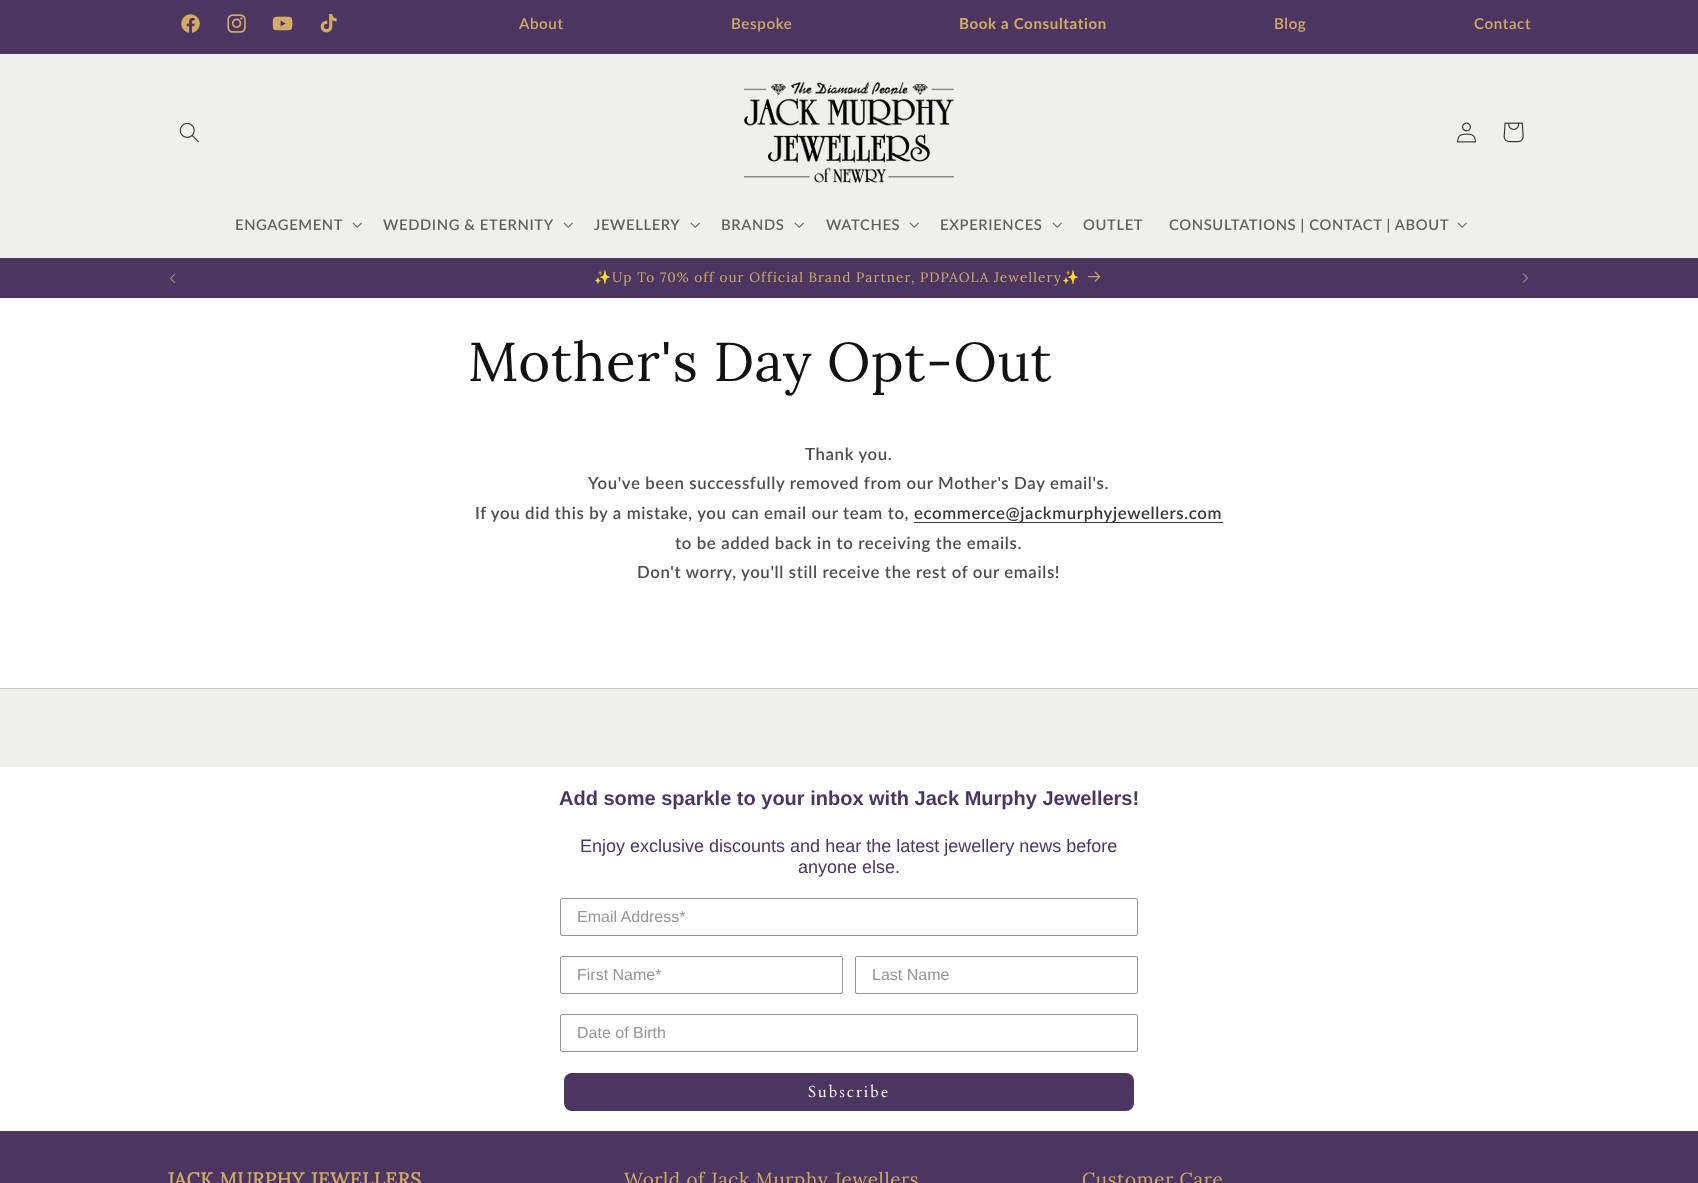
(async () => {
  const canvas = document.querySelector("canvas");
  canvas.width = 1698;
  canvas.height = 1183;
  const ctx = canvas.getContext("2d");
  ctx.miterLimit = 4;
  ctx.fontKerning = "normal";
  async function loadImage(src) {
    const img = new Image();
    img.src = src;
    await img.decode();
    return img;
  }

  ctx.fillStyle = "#ffffff";
  ctx.fillRect(0, 0, 1698, 1183);
  ctx.fillStyle = "#4c3561";
  ctx.fillRect(0, 0, 1698, 54);
  ctx.drawImage(await loadImage("img/1.png"), 181, 14, 19, 19);
  ctx.drawImage(await loadImage("img/2.png"), 227, 14, 19, 19);
  ctx.drawImage(await loadImage("img/3.png"), 272, 16, 21, 15);
  ctx.drawImage(await loadImage("img/4.png"), 320, 14, 17, 19);
  ctx.fillStyle = "#efefeb";
  ctx.fillRect(0, 54, 1698, 204);
  ctx.drawImage(await loadImage("img/5.png"), 179, 122, 20, 21);
  ctx.drawImage(await loadImage("img/6.png"), 744, 82, 210, 101);
  ctx.drawImage(await loadImage("img/7.png"), 1457, 122, 19, 21);
  ctx.drawImage(await loadImage("img/8.png"), 1503, 122, 21, 21);
  ctx.drawImage(await loadImage("img/9.png"), 352, 222, 10, 6);
  ctx.drawImage(await loadImage("img/9.png"), 563, 222, 10, 6);
  ctx.drawImage(await loadImage("img/9.png"), 690, 222, 10, 6);
  ctx.drawImage(await loadImage("img/9.png"), 794, 222, 10, 6);
  ctx.drawImage(await loadImage("img/9.png"), 909, 222, 10, 6);
  ctx.drawImage(await loadImage("img/9.png"), 1052, 222, 10, 6);
  ctx.drawImage(await loadImage("img/9.png"), 1457, 222, 10, 6);
  ctx.fillStyle = "#4c3561";
  ctx.fillRect(0, 258, 1698, 40);
  ctx.drawImage(await loadImage("img/10.png"), 170, 273, 6, 10);
  ctx.drawImage(await loadImage("img/11.png"), 1088, 271, 13, 11);
  ctx.drawImage(await loadImage("img/12.png"), 1522, 273, 6, 10);
  for (const [x, y, w, h, color] of [
    [914, 522, 309, 1, "#363636"],
    [0, 689, 1698, 78, "#efefeb"],
    [0, 688, 1698, 1, "#c9c9c6"],
  ]) {
    ctx.fillStyle = color;
    ctx.fillRect(x, y, w, h);
  }
  ctx.beginPath();
  ctx.roundRect(560.5, 898.5, 577, 37, 1.5);
  ctx.strokeStyle = "#949596";
  ctx.stroke();
  ctx.beginPath();
  ctx.roundRect(560.5, 956.5, 282, 37, 1.5);
  ctx.stroke();
  ctx.beginPath();
  ctx.roundRect(855.5, 956.5, 282, 37, 1.5);
  ctx.stroke();
  ctx.beginPath();
  ctx.roundRect(560.5, 1014.5, 577, 37, 1.5);
  ctx.stroke();
  ctx.fillStyle = "#4c3561";
  ctx.beginPath();
  ctx.roundRect(564, 1073, 570, 38, 8);
  ctx.fill();
  ctx.fillRect(0, 1131, 1698, 52);
  ctx.letterSpacing = "0.63px";
  ctx.font = "600 15.1px Lato";
  ctx.fillStyle = "#d2ac67";
  ctx.fillText("About", 519, 29);
  ctx.fillText("Bespoke", 731, 29);
  ctx.font = "bold 15.1px Lato";
  ctx.fillText("Book a Consultation", 959, 29);
  ctx.font = "600 15.1px Lato";
  ctx.fillText("Blog", 1274, 29);
  ctx.fillText("Contact", 1474, 29);
  ctx.font = "600 14.75px Lato";
  ctx.fillStyle = "#626261";
  for (const [text, x, y] of [
    ["ENGAGEMENT", 235, 230],
    ["WEDDING & ETERNITY", 383, 230],
    ["JEWELLERY", 594, 230],
    ["BRANDS", 721, 230],
    ["WATCHES", 826, 230],
    ["EXPERIENCES", 940, 230],
    ["OUTLET", 1083, 230],
    ["CONSULTATIONS | CONTACT | ABOUT", 1169, 230],
  ]) {
    ctx.fillText(text, x, y);
  }
  ctx.letterSpacing = "1.05px";
  ctx.font = "13.65px Noto Color Emoji";
  ctx.fillStyle = "#d2ac67";
  ctx.fillText("✨", 594, 282);
  ctx.font = "13.65px Lora";
  ctx.fillText("Up To 70% off our Official Brand Partner, PDPAOLA Jewellery", 612, 282);
  ctx.font = "13.65px Noto Color Emoji";
  ctx.fillText("✨", 1062, 282);
  ctx.letterSpacing = "0.63px";
  ctx.font = "54.6px Lora";
  ctx.fillStyle = "#121212";
  ctx.fillText("Mother's Day Opt-Out", 468, 381);
  ctx.font = "600 16.8px Lato";
  ctx.fillStyle = "#4d4d4d";
  for (const [text, x, y] of [
    ["Thank you.", 805, 460],
    ["You've been successfully removed from our Mother's Day email's.", 588, 489],
    ["If you did this by a mistake, you can email our team to,", 475, 519],
  ]) {
    ctx.fillText(text, x, y);
  }
  ctx.fillStyle = "#363636";
  ctx.fillText("ecommerce@jackmurphyjewellers.com", 914, 519);
  ctx.fillStyle = "#4d4d4d";
  ctx.fillText("to be added back in to receiving the emails.", 675, 549);
  ctx.fillText("Don't worry, you'll still receive the rest of our emails!", 637, 578);
  ctx.letterSpacing = "0px";
  ctx.font = "bold 20px Liberation Sans";
  ctx.fillStyle = "#4c3561";
  ctx.fillText("Add some sparkle to your inbox with Jack Murphy Jewellers!", 559, 805);
  ctx.font = "18px Liberation Sans";
  ctx.fillText("Enjoy exclusive discounts and hear the latest jewellery news before", 580, 852);
  ctx.fillText("anyone else.", 798, 873);
  ctx.font = "16px Liberation Sans";
  ctx.fillStyle = "#949596";
  for (const [text, x, y] of [
    ["Email Address*", 577, 922],
    ["First Name*", 577, 980],
    ["Last Name", 872, 980],
    ["Date of Birth", 577, 1038],
  ]) {
    ctx.fillText(text, x, y);
  }
  ctx.letterSpacing = "2px";
  ctx.font = "16px Cardo";
  ctx.fillStyle = "#ffffff";
  ctx.fillText("Subscribe", 808, 1097);
  ctx.letterSpacing = "0.63px";
  ctx.font = "bold 18.9px Lora";
  ctx.fillStyle = "#d2ac67";
  ctx.fillText("JACK MURPHY JEWELLERS", 167, 1186);
  ctx.font = "18.9px Lora";
  ctx.fillText("World of Jack Murphy Jewellers", 624, 1186);
  ctx.fillText("Customer Care", 1082, 1186);
})();
